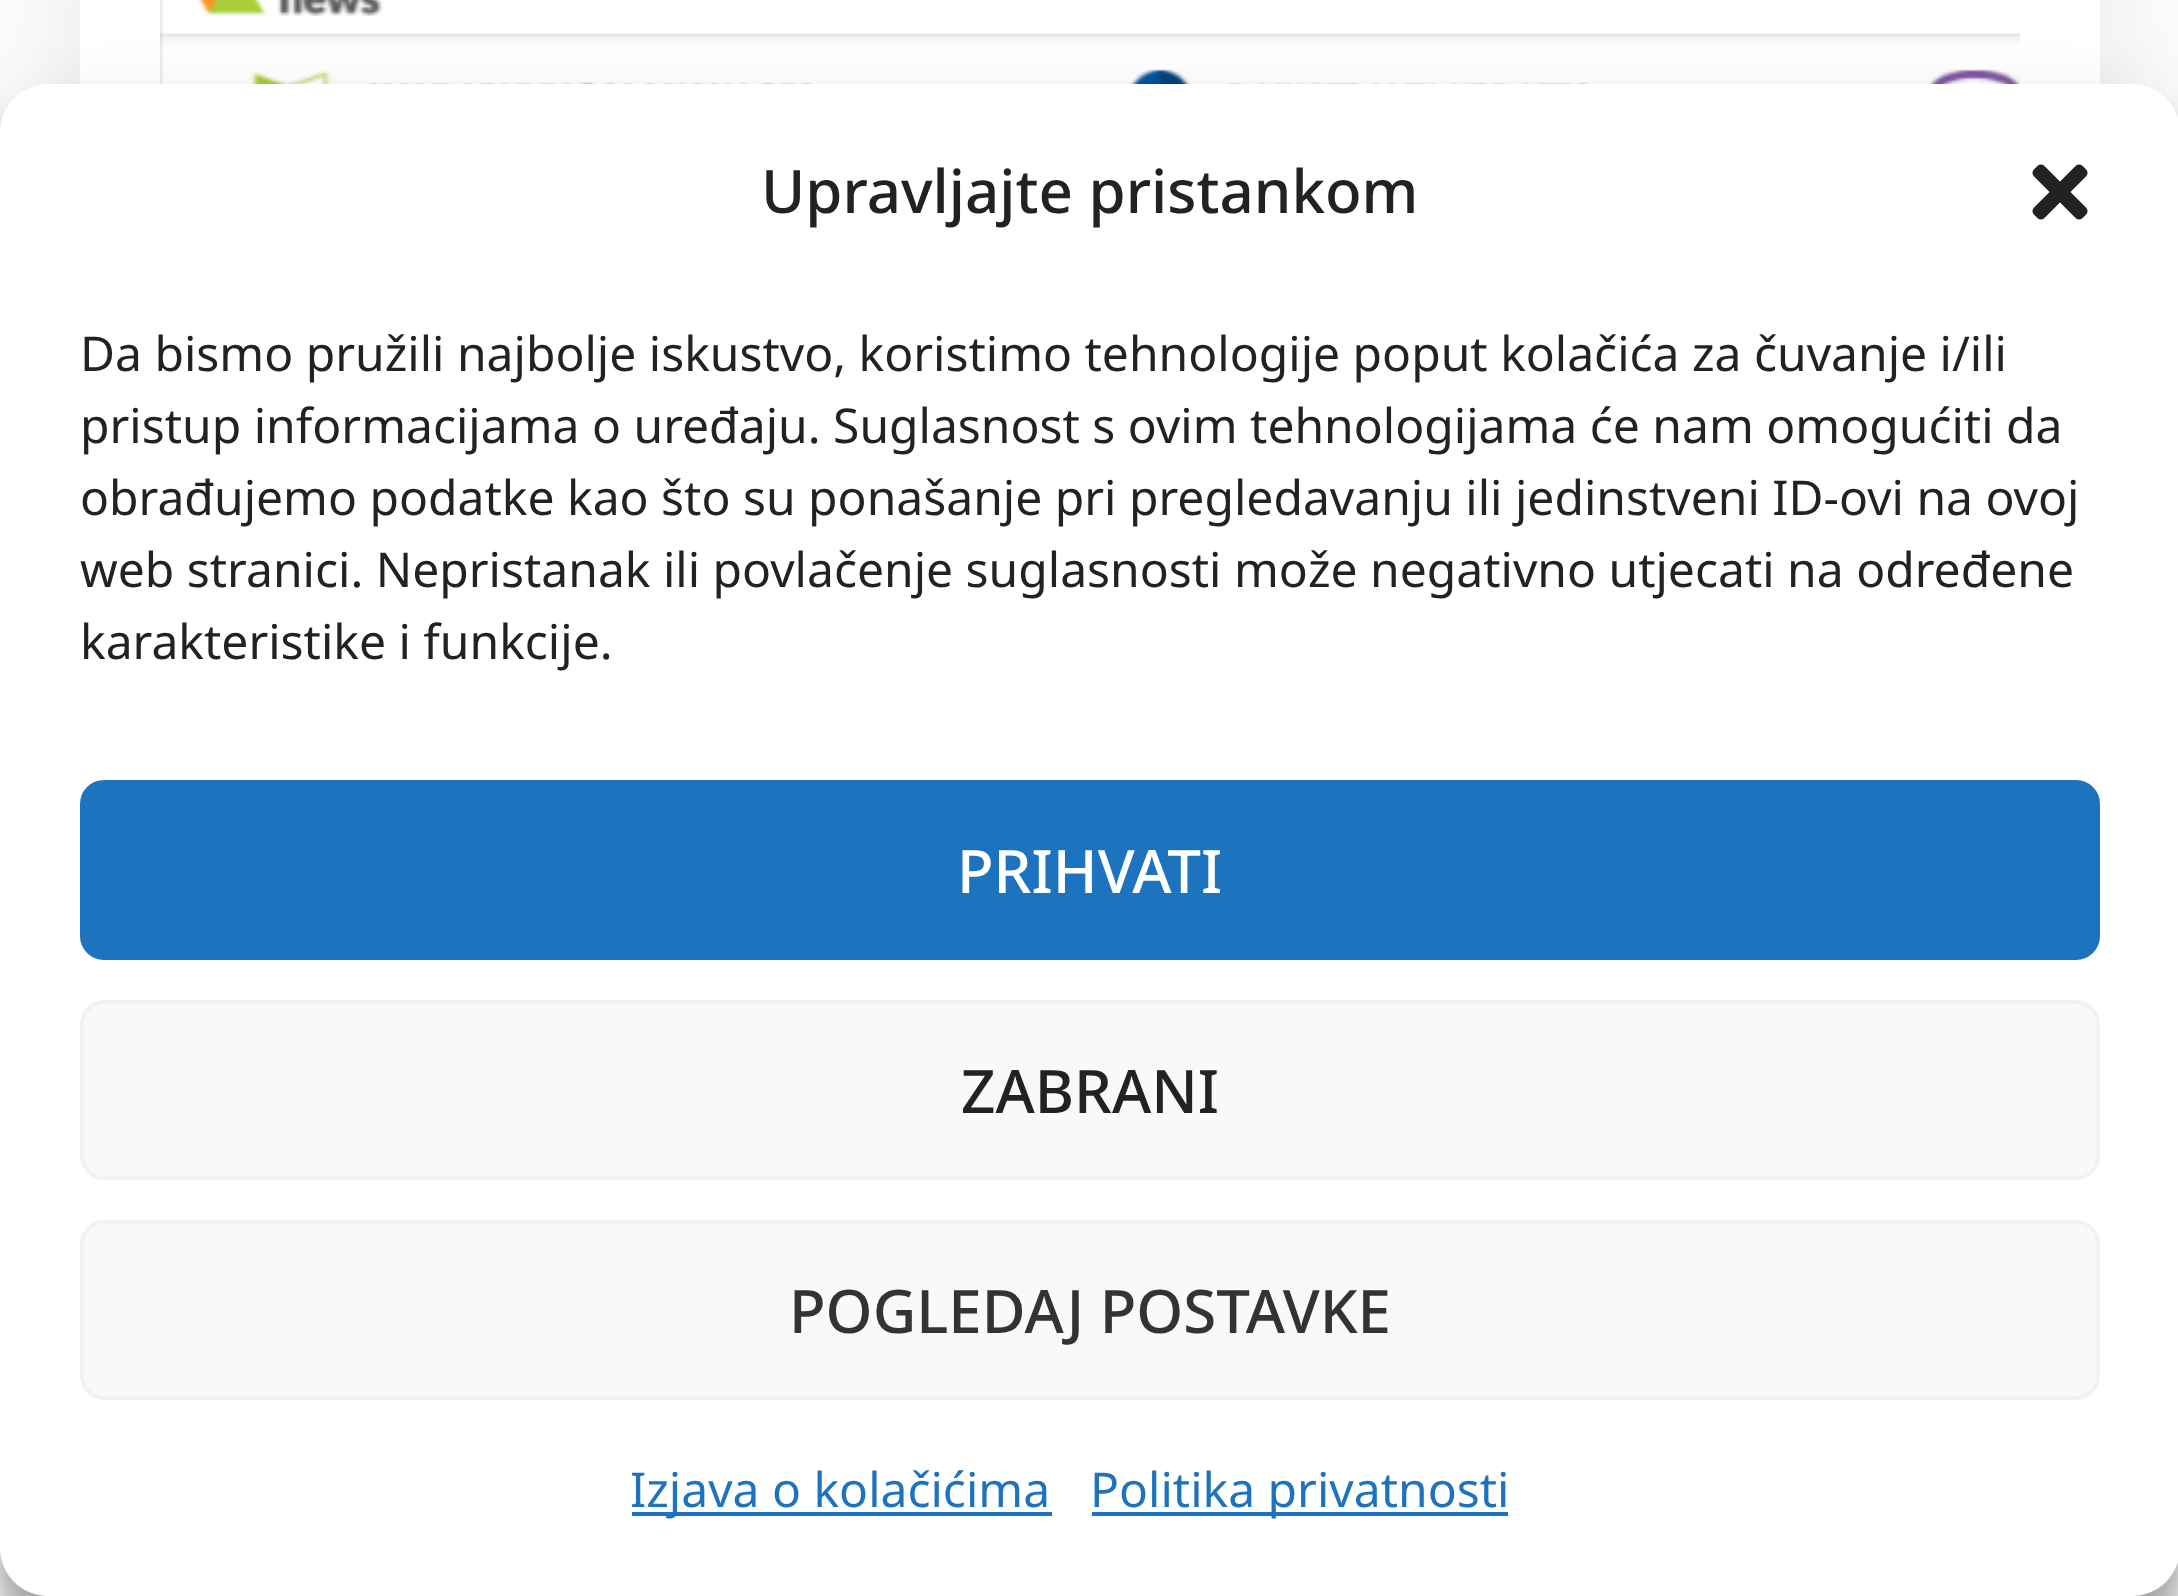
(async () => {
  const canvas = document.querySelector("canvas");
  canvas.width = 2178;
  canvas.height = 1596;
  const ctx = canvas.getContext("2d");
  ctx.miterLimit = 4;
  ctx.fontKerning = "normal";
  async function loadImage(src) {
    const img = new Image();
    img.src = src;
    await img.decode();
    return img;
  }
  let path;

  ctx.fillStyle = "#ffffff";
  ctx.fillRect(0, 0, 2178, 1596);
  ctx.save();
  path = new Path2D("M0 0H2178V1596H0ZM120-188H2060C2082-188 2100-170 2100-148V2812C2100 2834 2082 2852 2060 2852H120C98 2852 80 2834 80 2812V-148C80-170 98-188 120-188Z");
  ctx.clip(path, "evenodd");
  ctx.fillStyle = "rgba(0, 0, 0, 0.16)";
  ctx.filter = "blur(100px)";
  ctx.beginPath();
  ctx.rect(120, -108, 1940, 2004);
  ctx.fill();
  ctx.filter = "none";
  ctx.restore();
  ctx.drawImage(await loadImage("img/1.png"), 160, 0, 1860, 84);
  ctx.fillStyle = "rgba(0, 0, 0, 0.23)";
  ctx.filter = "blur(12px)";
  ctx.beginPath();
  ctx.roundRect(0, 108, 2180, 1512, 48);
  ctx.fill();
  ctx.filter = "none";
  ctx.fillStyle = "rgba(0, 0, 0, 0.19)";
  ctx.filter = "blur(40px)";
  ctx.beginPath();
  ctx.roundRect(0, 124, 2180, 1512, 48);
  ctx.fill();
  ctx.filter = "none";
  ctx.fillStyle = "#ffffff";
  ctx.beginPath();
  ctx.roundRect(0, 84, 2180, 1512, 48);
  ctx.fill();
  ctx.drawImage(await loadImage("img/2.png"), 2032, 164, 56, 56);
  ctx.fillStyle = "#1e73be";
  ctx.beginPath();
  ctx.roundRect(82, 782, 2016, 176, 22);
  ctx.fill();
  ctx.strokeStyle = "#1e73be";
  ctx.lineWidth = 4;
  ctx.stroke();
  ctx.fillStyle = "#f9f9f9";
  ctx.beginPath();
  ctx.roundRect(82, 1002, 2016, 176, 22);
  ctx.fill();
  ctx.strokeStyle = "#f2f2f2";
  ctx.stroke();
  ctx.beginPath();
  ctx.roundRect(82, 1222, 2016, 176, 22);
  ctx.fill();
  ctx.stroke();
  ctx.fillStyle = "#1e73be";
  ctx.fillRect(632, 1512, 420, 4);
  ctx.fillRect(1092, 1512, 416, 4);
  ctx.font = "500 60px Noto Sans";
  ctx.fillStyle = "#222222";
  ctx.fillText("Upravljajte pristankom", 761, 213);
  ctx.font = "48px Noto Sans";
  for (const [text, x, y] of [
    ["Da bismo pružili najbolje iskustvo, koristimo tehnologije poput kolačića za čuvanje i/ili", 80, 371],
    ["pristup informacijama o uređaju. Suglasnost s ovim tehnologijama će nam omogućiti da", 80, 443],
    ["obrađujemo podatke kao što su ponašanje pri pregledavanju ili jedinstveni ID-ovi na ovoj", 80, 515],
    ["web stranici. Nepristanak ili povlačenje suglasnosti može negativno utjecati na određene", 80, 587],
    ["karakteristike i funkcije.", 80, 659],
  ]) {
    ctx.fillText(text, x, y);
  }
  ctx.font = "500 60px Noto Sans";
  ctx.fillStyle = "#ffffff";
  ctx.fillText("PRIHVATI", 957, 893);
  ctx.fillStyle = "#222222";
  ctx.fillText("ZABRANI", 961, 1113);
  ctx.fillStyle = "#333333";
  ctx.fillText("POGLEDAJ POSTAVKE", 789, 1333);
  ctx.font = "48px Noto Sans";
  ctx.fillStyle = "#1e73be";
  ctx.fillText("Izjava o kolačićima", 630, 1507);
  ctx.fillText("Politika privatnosti", 1090, 1507);
})();
